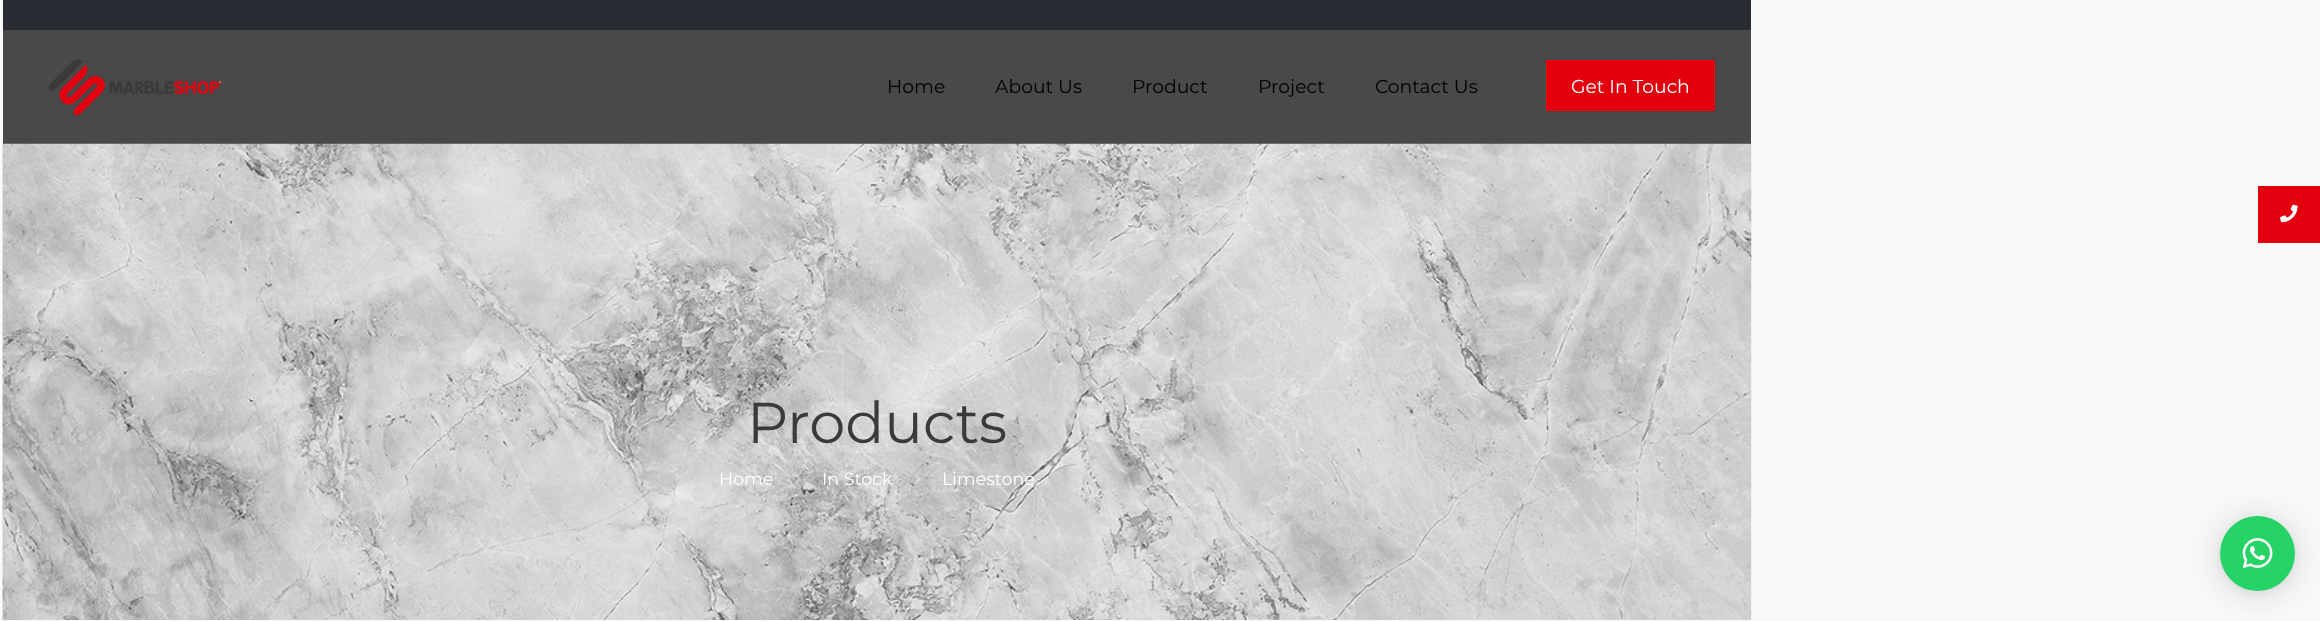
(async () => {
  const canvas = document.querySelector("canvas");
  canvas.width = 2320;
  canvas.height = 621;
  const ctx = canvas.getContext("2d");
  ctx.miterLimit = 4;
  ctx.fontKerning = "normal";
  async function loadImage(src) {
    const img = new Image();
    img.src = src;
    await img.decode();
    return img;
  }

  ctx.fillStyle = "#fafafa";
  ctx.fillRect(0, 0, 2320, 621);
  ctx.fillStyle = "#292b33";
  ctx.fillRect(3, 0, 1748, 30);
  ctx.fillStyle = "#494949";
  ctx.fillRect(3, 30, 1748, 114);
  ctx.drawImage(await loadImage("img/1.png"), 48, 59, 174, 57);
  ctx.fillStyle = "#e3000c";
  ctx.fillRect(1546, 60, 169, 51);
  ctx.drawImage(await loadImage("img/2.png"), 2, 143, 1750, 477);
  ctx.drawImage(await loadImage("img/3.png"), 795, 474, 6, 10);
  ctx.drawImage(await loadImage("img/4.png"), 915, 474, 6, 10);
  ctx.fillStyle = "#e3000e";
  ctx.fillRect(2258, 186, 62, 57);
  ctx.drawImage(await loadImage("img/5.png"), 2280, 204, 18, 19);
  ctx.fillStyle = "rgba(0, 0, 0, 0.16)";
  ctx.filter = "blur(20px)";
  ctx.beginPath();
  ctx.roundRect(2220, 519, 75, 75, 37.5);
  ctx.fill();
  ctx.filter = "none";
  ctx.fillStyle = "rgba(0, 0, 0, 0.06)";
  ctx.filter = "blur(4px)";
  ctx.beginPath();
  ctx.roundRect(2220, 518, 75, 75, 37.5);
  ctx.fill();
  ctx.filter = "none";
  ctx.fillStyle = "#25d366";
  ctx.beginPath();
  ctx.arc(2257.5, 553.5, 37.5, 0, Math.PI * 2);
  ctx.fill();
  ctx.drawImage(await loadImage("img/6.png"), 2242, 538, 31, 31);
  ctx.font = "18.75px Montserrat";
  ctx.fillStyle = "#000000";
  for (const [text, x, y] of [
    ["Home", 887, 93],
    ["About Us", 995, 93],
    ["Product", 1132, 93],
    ["Project", 1258, 93],
    ["Contact Us", 1375, 93],
  ]) {
    ctx.fillText(text, x, y);
  }
  ctx.fillStyle = "#ffffff";
  ctx.fillText("Get In Touch", 1571, 93);
  ctx.font = "57.5px Montserrat";
  ctx.fillStyle = "#3b3a39";
  ctx.fillText("Products", 747, 443);
  ctx.font = "17.5px Montserrat";
  ctx.fillStyle = "#ffffff";
  for (const [text, x, y] of [
    ["Home", 719, 485],
    ["In Stock", 822, 485],
    ["Limestone", 942, 485],
  ]) {
    ctx.fillText(text, x, y);
  }
})();
